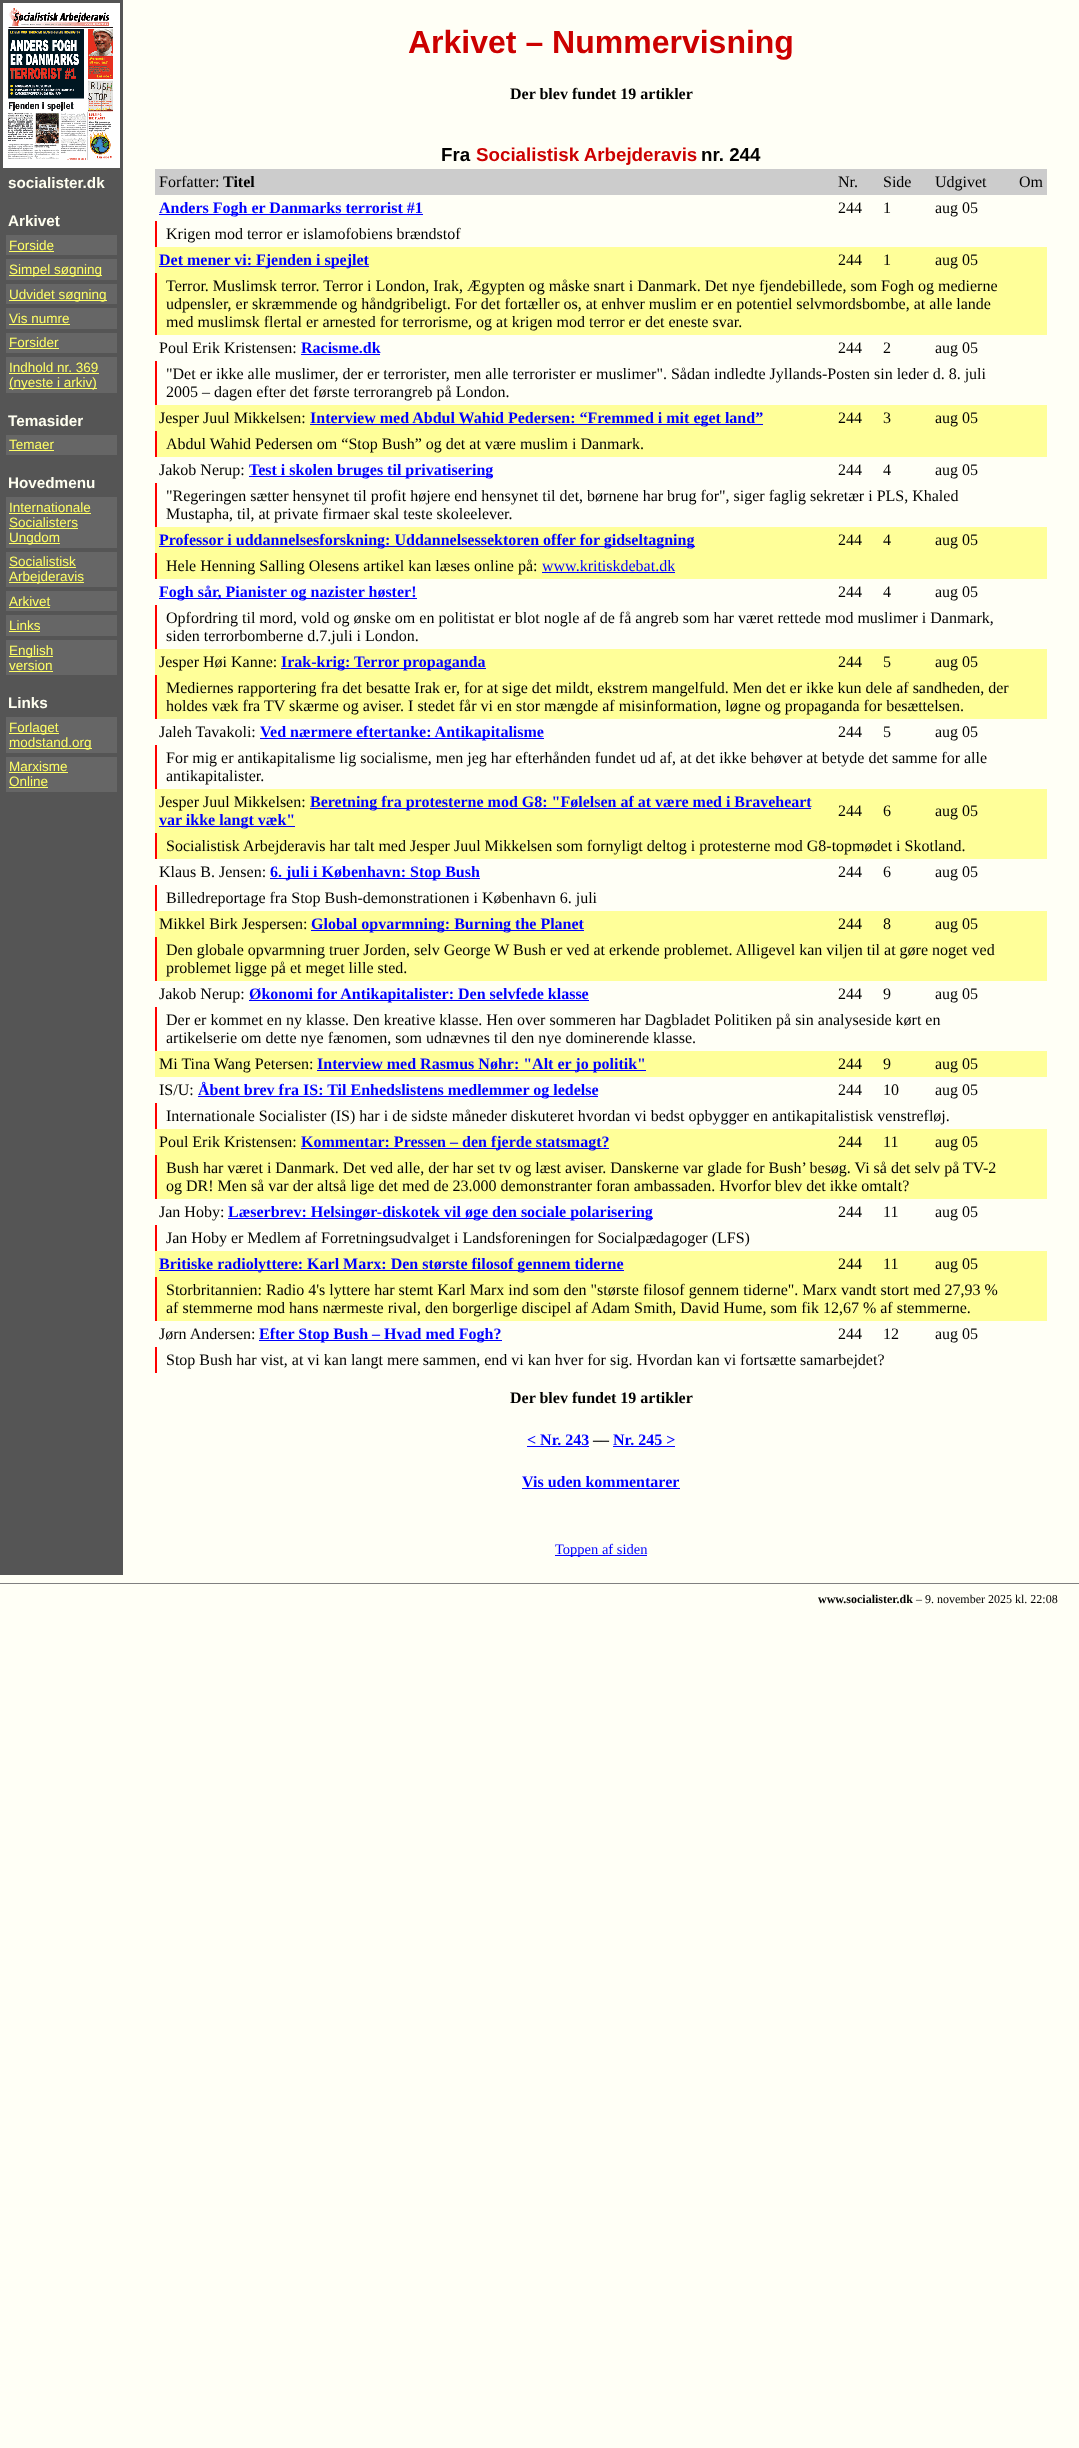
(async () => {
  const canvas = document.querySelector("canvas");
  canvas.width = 1079;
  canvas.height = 2448;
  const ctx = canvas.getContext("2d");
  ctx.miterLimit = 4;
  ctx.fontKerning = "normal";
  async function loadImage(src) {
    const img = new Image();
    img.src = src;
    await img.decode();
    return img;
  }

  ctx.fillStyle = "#fffff6";
  ctx.fillRect(0, 0, 1079, 2448);
  ctx.fillStyle = "#555555";
  ctx.fillRect(0, 0, 123, 1575);
  ctx.drawImage(await loadImage("img/1.png"), 3, 3, 117, 165);
  for (const [x, y, w, h, color] of [
    [6, 235, 111, 20, "#666666"],
    [9, 251, 45, 1, "#ffff66"],
    [6, 259, 111, 21, "#666666"],
    [9, 275, 93, 1, "#ffff66"],
    [6, 284, 111, 20, "#666666"],
    [9, 300, 98, 1, "#ffff66"],
    [6, 308, 111, 21, "#666666"],
    [9, 324, 61, 1, "#ffff66"],
    [6, 333, 111, 20, "#666666"],
    [9, 348, 50, 1, "#ffff66"],
    [6, 357, 111, 36, "#666666"],
    [9, 373, 90, 1, "#ffff66"],
    [9, 388, 88, 1, "#ffff66"],
    [6, 435, 111, 20, "#666666"],
    [9, 450, 45, 1, "#ffff66"],
    [6, 497, 111, 51, "#666666"],
    [9, 513, 82, 1, "#ffff66"],
    [9, 528, 69, 1, "#ffff66"],
    [9, 543, 51, 1, "#ffff66"],
    [6, 552, 111, 35, "#666666"],
    [9, 567, 67, 1, "#ffff66"],
    [9, 582, 75, 1, "#ffff66"],
    [6, 591, 111, 20, "#666666"],
    [9, 607, 41, 1, "#ffff66"],
    [6, 615, 111, 21, "#666666"],
    [9, 631, 31, 1, "#ffff66"],
    [6, 640, 111, 35, "#666666"],
    [9, 656, 44, 1, "#ffff66"],
    [9, 671, 44, 1, "#ffff66"],
    [6, 717, 111, 36, "#666666"],
    [9, 733, 50, 1, "#ffff66"],
    [9, 748, 83, 1, "#ffff66"],
    [6, 757, 111, 35, "#666666"],
    [9, 772, 59, 1, "#ffff66"],
    [9, 787, 39, 1, "#ffff66"],
    [155, 169, 892, 26, "#cccccc"],
    [159, 214, 264, 1, "#0000ff"],
    [155, 221, 2, 26, "#ff0000"],
    [155, 247, 892, 26, "#ffff99"],
    [159, 266, 210, 1, "#0000ff"],
    [157, 273, 890, 62, "#ffff99"],
    [155, 273, 2, 62, "#ff0000"],
    [301, 354, 79, 1, "#0000ff"],
    [155, 361, 2, 44, "#ff0000"],
    [155, 405, 892, 26, "#ffff99"],
    [310, 424, 453, 1, "#0000ff"],
    [157, 431, 890, 26, "#ffff99"],
    [155, 431, 2, 26, "#ff0000"],
    [249, 476, 244, 1, "#0000ff"],
    [155, 483, 2, 44, "#ff0000"],
    [155, 527, 892, 26, "#ffff99"],
    [159, 546, 536, 1, "#0000ff"],
    [157, 553, 890, 26, "#ffff99"],
    [155, 553, 2, 26, "#ff0000"],
    [542, 572, 133, 1, "#0000ff"],
    [159, 598, 258, 1, "#0000ff"],
    [155, 605, 2, 44, "#ff0000"],
    [155, 649, 892, 26, "#ffff99"],
    [281, 668, 205, 1, "#0000ff"],
    [157, 675, 890, 44, "#ffff99"],
    [155, 675, 2, 44, "#ff0000"],
    [260, 738, 284, 1, "#0000ff"],
    [155, 745, 2, 44, "#ff0000"],
    [155, 789, 892, 44, "#ffff99"],
    [310, 808, 501, 1, "#0000ff"],
    [159, 826, 136, 1, "#0000ff"],
    [157, 833, 890, 26, "#ffff99"],
    [155, 833, 2, 26, "#ff0000"],
    [270, 878, 210, 1, "#0000ff"],
    [155, 885, 2, 26, "#ff0000"],
    [155, 911, 892, 26, "#ffff99"],
    [311, 930, 273, 1, "#0000ff"],
    [157, 937, 890, 44, "#ffff99"],
    [155, 937, 2, 44, "#ff0000"],
    [249, 1000, 340, 1, "#0000ff"],
    [155, 1007, 2, 44, "#ff0000"],
    [155, 1051, 892, 26, "#ffff99"],
    [317, 1070, 329, 1, "#0000ff"],
    [198, 1096, 400, 1, "#0000ff"],
    [155, 1103, 2, 26, "#ff0000"],
    [155, 1129, 892, 26, "#ffff99"],
    [301, 1148, 308, 1, "#0000ff"],
    [157, 1155, 890, 44, "#ffff99"],
    [155, 1155, 2, 44, "#ff0000"],
    [228, 1218, 425, 1, "#0000ff"],
    [155, 1225, 2, 26, "#ff0000"],
    [155, 1251, 892, 26, "#ffff99"],
    [159, 1270, 465, 1, "#0000ff"],
    [157, 1277, 890, 44, "#ffff99"],
    [155, 1277, 2, 44, "#ff0000"],
    [259, 1340, 243, 1, "#0000ff"],
    [155, 1347, 2, 26, "#ff0000"],
    [527, 1446, 62, 1, "#0000ff"],
    [613, 1446, 62, 1, "#0000ff"],
    [522, 1488, 158, 1, "#0000ff"],
    [555, 1555, 92, 1, "#0000ff"],
    [0, 1583, 1079, 1, "#808080"],
  ]) {
    ctx.fillStyle = color;
    ctx.fillRect(x, y, w, h);
  }
  ctx.font = "bold 15.25px Liberation Sans";
  ctx.fillStyle = "#fffff0";
  ctx.fillText("socialister.dk", 8, 188);
  ctx.fillText("Arkivet", 8, 226);
  ctx.font = "13.5px Liberation Sans";
  ctx.fillStyle = "#ffff66";
  for (const [text, x, y] of [
    ["Forside", 9, 250],
    ["Simpel søgning", 9, 274],
    ["Udvidet søgning", 9, 299],
    ["Vis numre", 9, 323],
    ["Forsider", 9, 347],
    ["Indhold nr. 369", 9, 372],
    ["(nyeste i arkiv)", 9, 387],
  ]) {
    ctx.fillText(text, x, y);
  }
  ctx.font = "bold 15.25px Liberation Sans";
  ctx.fillStyle = "#fffff0";
  ctx.fillText("Temasider", 8, 426);
  ctx.font = "13.5px Liberation Sans";
  ctx.fillStyle = "#ffff66";
  ctx.fillText("Temaer", 9, 449);
  ctx.font = "bold 15.25px Liberation Sans";
  ctx.fillStyle = "#fffff0";
  ctx.fillText("Hovedmenu", 8, 488);
  ctx.font = "13.5px Liberation Sans";
  ctx.fillStyle = "#ffff66";
  for (const [text, x, y] of [
    ["Internationale", 9, 512],
    ["Socialisters", 9, 527],
    ["Ungdom", 9, 542],
    ["Socialistisk", 9, 566],
    ["Arbejderavis", 9, 581],
    ["Arkivet", 9, 606],
    ["Links", 9, 630],
    ["English", 9, 655],
    ["version", 9, 670],
  ]) {
    ctx.fillText(text, x, y);
  }
  ctx.font = "bold 15.25px Liberation Sans";
  ctx.fillStyle = "#fffff0";
  ctx.fillText("Links", 8, 708);
  ctx.font = "13.5px Liberation Sans";
  ctx.fillStyle = "#ffff66";
  for (const [text, x, y] of [
    ["Forlaget", 9, 732],
    ["modstand.org", 9, 747],
    ["Marxisme", 9, 771],
    ["Online", 9, 786],
  ]) {
    ctx.fillText(text, x, y);
  }
  ctx.font = "bold 32px Liberation Sans";
  ctx.fillStyle = "#cc0000";
  ctx.fillText("Arkivet – Nummervisning", 408, 53);
  ctx.font = "bold 16px Liberation Serif";
  ctx.fillStyle = "#000000";
  ctx.fillText("Der blev fundet 19 artikler", 510, 99);
  ctx.font = "bold 18.75px Liberation Sans";
  ctx.fillText("Fra", 441, 161);
  ctx.fillStyle = "#cc0000";
  ctx.fillText("Socialistisk Arbejderavis", 476, 161);
  ctx.fillStyle = "#000000";
  ctx.fillText("nr. 244", 701, 161);
  ctx.font = "16px Liberation Serif";
  ctx.fillText("Forfatter:", 159, 187);
  ctx.font = "bold 16px Liberation Serif";
  ctx.fillText("Titel", 223, 187);
  ctx.font = "16px Liberation Serif";
  for (const [text, x, y] of [
    ["Nr.", 838, 187],
    ["Side", 883, 187],
    ["Udgivet", 935, 187],
    ["Om", 1019, 187],
  ]) {
    ctx.fillText(text, x, y);
  }
  ctx.font = "bold 16px Liberation Serif";
  ctx.fillStyle = "#0000ff";
  ctx.fillText("Anders Fogh er Danmarks terrorist #1", 159, 213);
  ctx.font = "16px Liberation Serif";
  ctx.fillStyle = "#000000";
  for (const [text, x, y] of [
    ["244", 838, 213],
    ["1", 883, 213],
    ["aug 05", 935, 213],
    ["Krigen mod terror er islamofobiens brændstof", 166, 239],
  ]) {
    ctx.fillText(text, x, y);
  }
  ctx.font = "bold 16px Liberation Serif";
  ctx.fillStyle = "#0000ff";
  ctx.fillText("Det mener vi: Fjenden i spejlet", 159, 265);
  ctx.font = "16px Liberation Serif";
  ctx.fillStyle = "#000000";
  for (const [text, x, y] of [
    ["244", 838, 265],
    ["1", 883, 265],
    ["aug 05", 935, 265],
    ["Terror. Muslimsk terror. Terror i London, Irak, Ægypten og måske snart i Danmark. Det nye fjendebillede, som Fogh og medierne", 166, 291],
    ["udpensler, er skræmmende og håndgribeligt. For det fortæller os, at enhver muslim er en potentiel selvmordsbombe, at alle lande", 166, 309],
    ["med muslimsk flertal er arnested for terrorisme, og at krigen mod terror er det eneste svar.", 166, 327],
    ["Poul Erik Kristensen:", 159, 353],
  ]) {
    ctx.fillText(text, x, y);
  }
  ctx.font = "bold 16px Liberation Serif";
  ctx.fillStyle = "#0000ff";
  ctx.fillText("Racisme.dk", 301, 353);
  ctx.font = "16px Liberation Serif";
  ctx.fillStyle = "#000000";
  for (const [text, x, y] of [
    ["244", 838, 353],
    ["2", 883, 353],
    ["aug 05", 935, 353],
    ["\"Det er ikke alle muslimer, der er terrorister, men alle terrorister er muslimer\". Sådan indledte Jyllands-Posten sin leder d. 8. juli", 166, 379],
    ["2005 – dagen efter det første terrorangreb på London.", 166, 397],
    ["Jesper Juul Mikkelsen:", 159, 423],
  ]) {
    ctx.fillText(text, x, y);
  }
  ctx.font = "bold 16px Liberation Serif";
  ctx.fillStyle = "#0000ff";
  ctx.fillText("Interview med Abdul Wahid Pedersen: “Fremmed i mit eget land”", 310, 423);
  ctx.font = "16px Liberation Serif";
  ctx.fillStyle = "#000000";
  for (const [text, x, y] of [
    ["244", 838, 423],
    ["3", 883, 423],
    ["aug 05", 935, 423],
    ["Abdul Wahid Pedersen om “Stop Bush” og det at være muslim i Danmark.", 166, 449],
    ["Jakob Nerup:", 159, 475],
  ]) {
    ctx.fillText(text, x, y);
  }
  ctx.font = "bold 16px Liberation Serif";
  ctx.fillStyle = "#0000ff";
  ctx.fillText("Test i skolen bruges til privatisering", 249, 475);
  ctx.font = "16px Liberation Serif";
  ctx.fillStyle = "#000000";
  for (const [text, x, y] of [
    ["244", 838, 475],
    ["4", 883, 475],
    ["aug 05", 935, 475],
    ["\"Regeringen sætter hensynet til profit højere end hensynet til det, børnene har brug for\", siger faglig sekretær i PLS, Khaled", 166, 501],
    ["Mustapha, til, at private firmaer skal teste skoleelever.", 166, 519],
  ]) {
    ctx.fillText(text, x, y);
  }
  ctx.font = "bold 16px Liberation Serif";
  ctx.fillStyle = "#0000ff";
  ctx.fillText("Professor i uddannelsesforskning: Uddannelsessektoren offer for gidseltagning", 159, 545);
  ctx.font = "16px Liberation Serif";
  ctx.fillStyle = "#000000";
  for (const [text, x, y] of [
    ["244", 838, 545],
    ["4", 883, 545],
    ["aug 05", 935, 545],
    ["Hele Henning Salling Olesens artikel kan læses online på:", 166, 571],
  ]) {
    ctx.fillText(text, x, y);
  }
  ctx.fillStyle = "#0000ff";
  ctx.fillText("www.kritiskdebat.dk", 542, 571);
  ctx.font = "bold 16px Liberation Serif";
  ctx.fillText("Fogh sår, Pianister og nazister høster!", 159, 597);
  ctx.font = "16px Liberation Serif";
  ctx.fillStyle = "#000000";
  for (const [text, x, y] of [
    ["244", 838, 597],
    ["4", 883, 597],
    ["aug 05", 935, 597],
    ["Opfordring til mord, vold og ønske om en politistat er blot nogle af de få angreb som har været rettede mod muslimer i Danmark,", 166, 623],
    ["siden terrorbomberne d.7.juli i London.", 166, 641],
    ["Jesper Høi Kanne:", 159, 667],
  ]) {
    ctx.fillText(text, x, y);
  }
  ctx.font = "bold 16px Liberation Serif";
  ctx.fillStyle = "#0000ff";
  ctx.fillText("Irak-krig: Terror propaganda", 281, 667);
  ctx.font = "16px Liberation Serif";
  ctx.fillStyle = "#000000";
  for (const [text, x, y] of [
    ["244", 838, 667],
    ["5", 883, 667],
    ["aug 05", 935, 667],
    ["Mediernes rapportering fra det besatte Irak er, for at sige det mildt, ekstrem mangelfuld. Men det er ikke kun dele af sandheden, der", 166, 693],
    ["holdes væk fra TV skærme og aviser. I stedet får vi en stor mængde af misinformation, løgne og propaganda for besættelsen.", 166, 711],
    ["Jaleh Tavakoli:", 159, 737],
  ]) {
    ctx.fillText(text, x, y);
  }
  ctx.font = "bold 16px Liberation Serif";
  ctx.fillStyle = "#0000ff";
  ctx.fillText("Ved nærmere eftertanke: Antikapitalisme", 260, 737);
  ctx.font = "16px Liberation Serif";
  ctx.fillStyle = "#000000";
  for (const [text, x, y] of [
    ["244", 838, 737],
    ["5", 883, 737],
    ["aug 05", 935, 737],
    ["For mig er antikapitalisme lig socialisme, men jeg har efterhånden fundet ud af, at det ikke behøver at betyde det samme for alle", 166, 763],
    ["antikapitalister.", 166, 781],
    ["Jesper Juul Mikkelsen:", 159, 807],
  ]) {
    ctx.fillText(text, x, y);
  }
  ctx.font = "bold 16px Liberation Serif";
  ctx.fillStyle = "#0000ff";
  ctx.fillText("Beretning fra protesterne mod G8: \"Følelsen af at være med i Braveheart", 310, 807);
  ctx.fillText("var ikke langt væk\"", 159, 825);
  ctx.font = "16px Liberation Serif";
  ctx.fillStyle = "#000000";
  for (const [text, x, y] of [
    ["244", 838, 816],
    ["6", 883, 816],
    ["aug 05", 935, 816],
    ["Socialistisk Arbejderavis har talt med Jesper Juul Mikkelsen som fornyligt deltog i protesterne mod G8-topmødet i Skotland.", 166, 851],
    ["Klaus B. Jensen:", 159, 877],
  ]) {
    ctx.fillText(text, x, y);
  }
  ctx.font = "bold 16px Liberation Serif";
  ctx.fillStyle = "#0000ff";
  ctx.fillText("6. juli i København: Stop Bush", 270, 877);
  ctx.font = "16px Liberation Serif";
  ctx.fillStyle = "#000000";
  for (const [text, x, y] of [
    ["244", 838, 877],
    ["6", 883, 877],
    ["aug 05", 935, 877],
    ["Billedreportage fra Stop Bush-demonstrationen i København 6. juli", 166, 903],
    ["Mikkel Birk Jespersen:", 159, 929],
  ]) {
    ctx.fillText(text, x, y);
  }
  ctx.font = "bold 16px Liberation Serif";
  ctx.fillStyle = "#0000ff";
  ctx.fillText("Global opvarmning: Burning the Planet", 311, 929);
  ctx.font = "16px Liberation Serif";
  ctx.fillStyle = "#000000";
  for (const [text, x, y] of [
    ["244", 838, 929],
    ["8", 883, 929],
    ["aug 05", 935, 929],
    ["Den globale opvarmning truer Jorden, selv George W Bush er ved at erkende problemet. Alligevel kan viljen til at gøre noget ved", 166, 955],
    ["problemet ligge på et meget lille sted.", 166, 973],
    ["Jakob Nerup:", 159, 999],
  ]) {
    ctx.fillText(text, x, y);
  }
  ctx.font = "bold 16px Liberation Serif";
  ctx.fillStyle = "#0000ff";
  ctx.fillText("Økonomi for Antikapitalister: Den selvfede klasse", 249, 999);
  ctx.font = "16px Liberation Serif";
  ctx.fillStyle = "#000000";
  for (const [text, x, y] of [
    ["244", 838, 999],
    ["9", 883, 999],
    ["aug 05", 935, 999],
    ["Der er kommet en ny klasse. Den kreative klasse. Hen over sommeren har Dagbladet Politiken på sin analyseside kørt en", 166, 1025],
    ["artikelserie om dette nye fænomen, som udnævnes til den nye dominerende klasse.", 166, 1043],
    ["Mi Tina Wang Petersen:", 159, 1069],
  ]) {
    ctx.fillText(text, x, y);
  }
  ctx.font = "bold 16px Liberation Serif";
  ctx.fillStyle = "#0000ff";
  ctx.fillText("Interview med Rasmus Nøhr: \"Alt er jo politik\"", 317, 1069);
  ctx.font = "16px Liberation Serif";
  ctx.fillStyle = "#000000";
  for (const [text, x, y] of [
    ["244", 838, 1069],
    ["9", 883, 1069],
    ["aug 05", 935, 1069],
    ["IS/U:", 159, 1095],
  ]) {
    ctx.fillText(text, x, y);
  }
  ctx.font = "bold 16px Liberation Serif";
  ctx.fillStyle = "#0000ff";
  ctx.fillText("Åbent brev fra IS: Til Enhedslistens medlemmer og ledelse", 198, 1095);
  ctx.font = "16px Liberation Serif";
  ctx.fillStyle = "#000000";
  for (const [text, x, y] of [
    ["244", 838, 1095],
    ["10", 883, 1095],
    ["aug 05", 935, 1095],
    ["Internationale Socialister (IS) har i de sidste måneder diskuteret hvordan vi bedst opbygger en antikapitalistisk venstrefløj.", 166, 1121],
    ["Poul Erik Kristensen:", 159, 1147],
  ]) {
    ctx.fillText(text, x, y);
  }
  ctx.font = "bold 16px Liberation Serif";
  ctx.fillStyle = "#0000ff";
  ctx.fillText("Kommentar: Pressen – den fjerde statsmagt?", 301, 1147);
  ctx.font = "16px Liberation Serif";
  ctx.fillStyle = "#000000";
  for (const [text, x, y] of [
    ["244", 838, 1147],
    ["11", 883, 1147],
    ["aug 05", 935, 1147],
    ["Bush har været i Danmark. Det ved alle, der har set tv og læst aviser. Danskerne var glade for Bush’ besøg. Vi så det selv på TV-2", 166, 1173],
    ["og DR! Men så var der altså lige det med de 23.000 demonstranter foran ambassaden. Hvorfor blev det ikke omtalt?", 166, 1191],
    ["Jan Hoby:", 159, 1217],
  ]) {
    ctx.fillText(text, x, y);
  }
  ctx.font = "bold 16px Liberation Serif";
  ctx.fillStyle = "#0000ff";
  ctx.fillText("Læserbrev: Helsingør-diskotek vil øge den sociale polarisering", 228, 1217);
  ctx.font = "16px Liberation Serif";
  ctx.fillStyle = "#000000";
  for (const [text, x, y] of [
    ["244", 838, 1217],
    ["11", 883, 1217],
    ["aug 05", 935, 1217],
    ["Jan Hoby er Medlem af Forretningsudvalget i Landsforeningen for Socialpædagoger (LFS)", 166, 1243],
  ]) {
    ctx.fillText(text, x, y);
  }
  ctx.font = "bold 16px Liberation Serif";
  ctx.fillStyle = "#0000ff";
  ctx.fillText("Britiske radiolyttere: Karl Marx: Den største filosof gennem tiderne", 159, 1269);
  ctx.font = "16px Liberation Serif";
  ctx.fillStyle = "#000000";
  for (const [text, x, y] of [
    ["244", 838, 1269],
    ["11", 883, 1269],
    ["aug 05", 935, 1269],
    ["Storbritannien: Radio 4's lyttere har stemt Karl Marx ind som den \"største filosof gennem tiderne\". Marx vandt stort med 27,93 %", 166, 1295],
    ["af stemmerne mod hans nærmeste rival, den borgerlige discipel af Adam Smith, David Hume, som fik 12,67 % af stemmerne.", 166, 1313],
    ["Jørn Andersen:", 159, 1339],
  ]) {
    ctx.fillText(text, x, y);
  }
  ctx.font = "bold 16px Liberation Serif";
  ctx.fillStyle = "#0000ff";
  ctx.fillText("Efter Stop Bush – Hvad med Fogh?", 259, 1339);
  ctx.font = "16px Liberation Serif";
  ctx.fillStyle = "#000000";
  for (const [text, x, y] of [
    ["244", 838, 1339],
    ["12", 883, 1339],
    ["aug 05", 935, 1339],
    ["Stop Bush har vist, at vi kan langt mere sammen, end vi kan hver for sig. Hvordan kan vi fortsætte samarbejdet?", 166, 1365],
  ]) {
    ctx.fillText(text, x, y);
  }
  ctx.font = "bold 16px Liberation Serif";
  ctx.fillText("Der blev fundet 19 artikler", 510, 1403);
  ctx.fillStyle = "#0000ff";
  ctx.fillText("< Nr. 243", 527, 1445);
  ctx.fillStyle = "#000000";
  ctx.fillText("––", 593, 1445);
  ctx.fillStyle = "#0000ff";
  ctx.fillText("Nr. 245 >", 613, 1445);
  ctx.fillText("Vis uden kommentarer", 522, 1487);
  ctx.font = "14.5px Liberation Serif";
  ctx.fillText("Toppen af siden", 555, 1554);
  ctx.font = "bold 12px Liberation Serif";
  ctx.fillStyle = "#000000";
  ctx.fillText("www.socialister.dk", 818, 1603);
  ctx.font = "12px Liberation Serif";
  ctx.fillText("– 9. november 2025 kl. 22:08", 916, 1603);
})();
